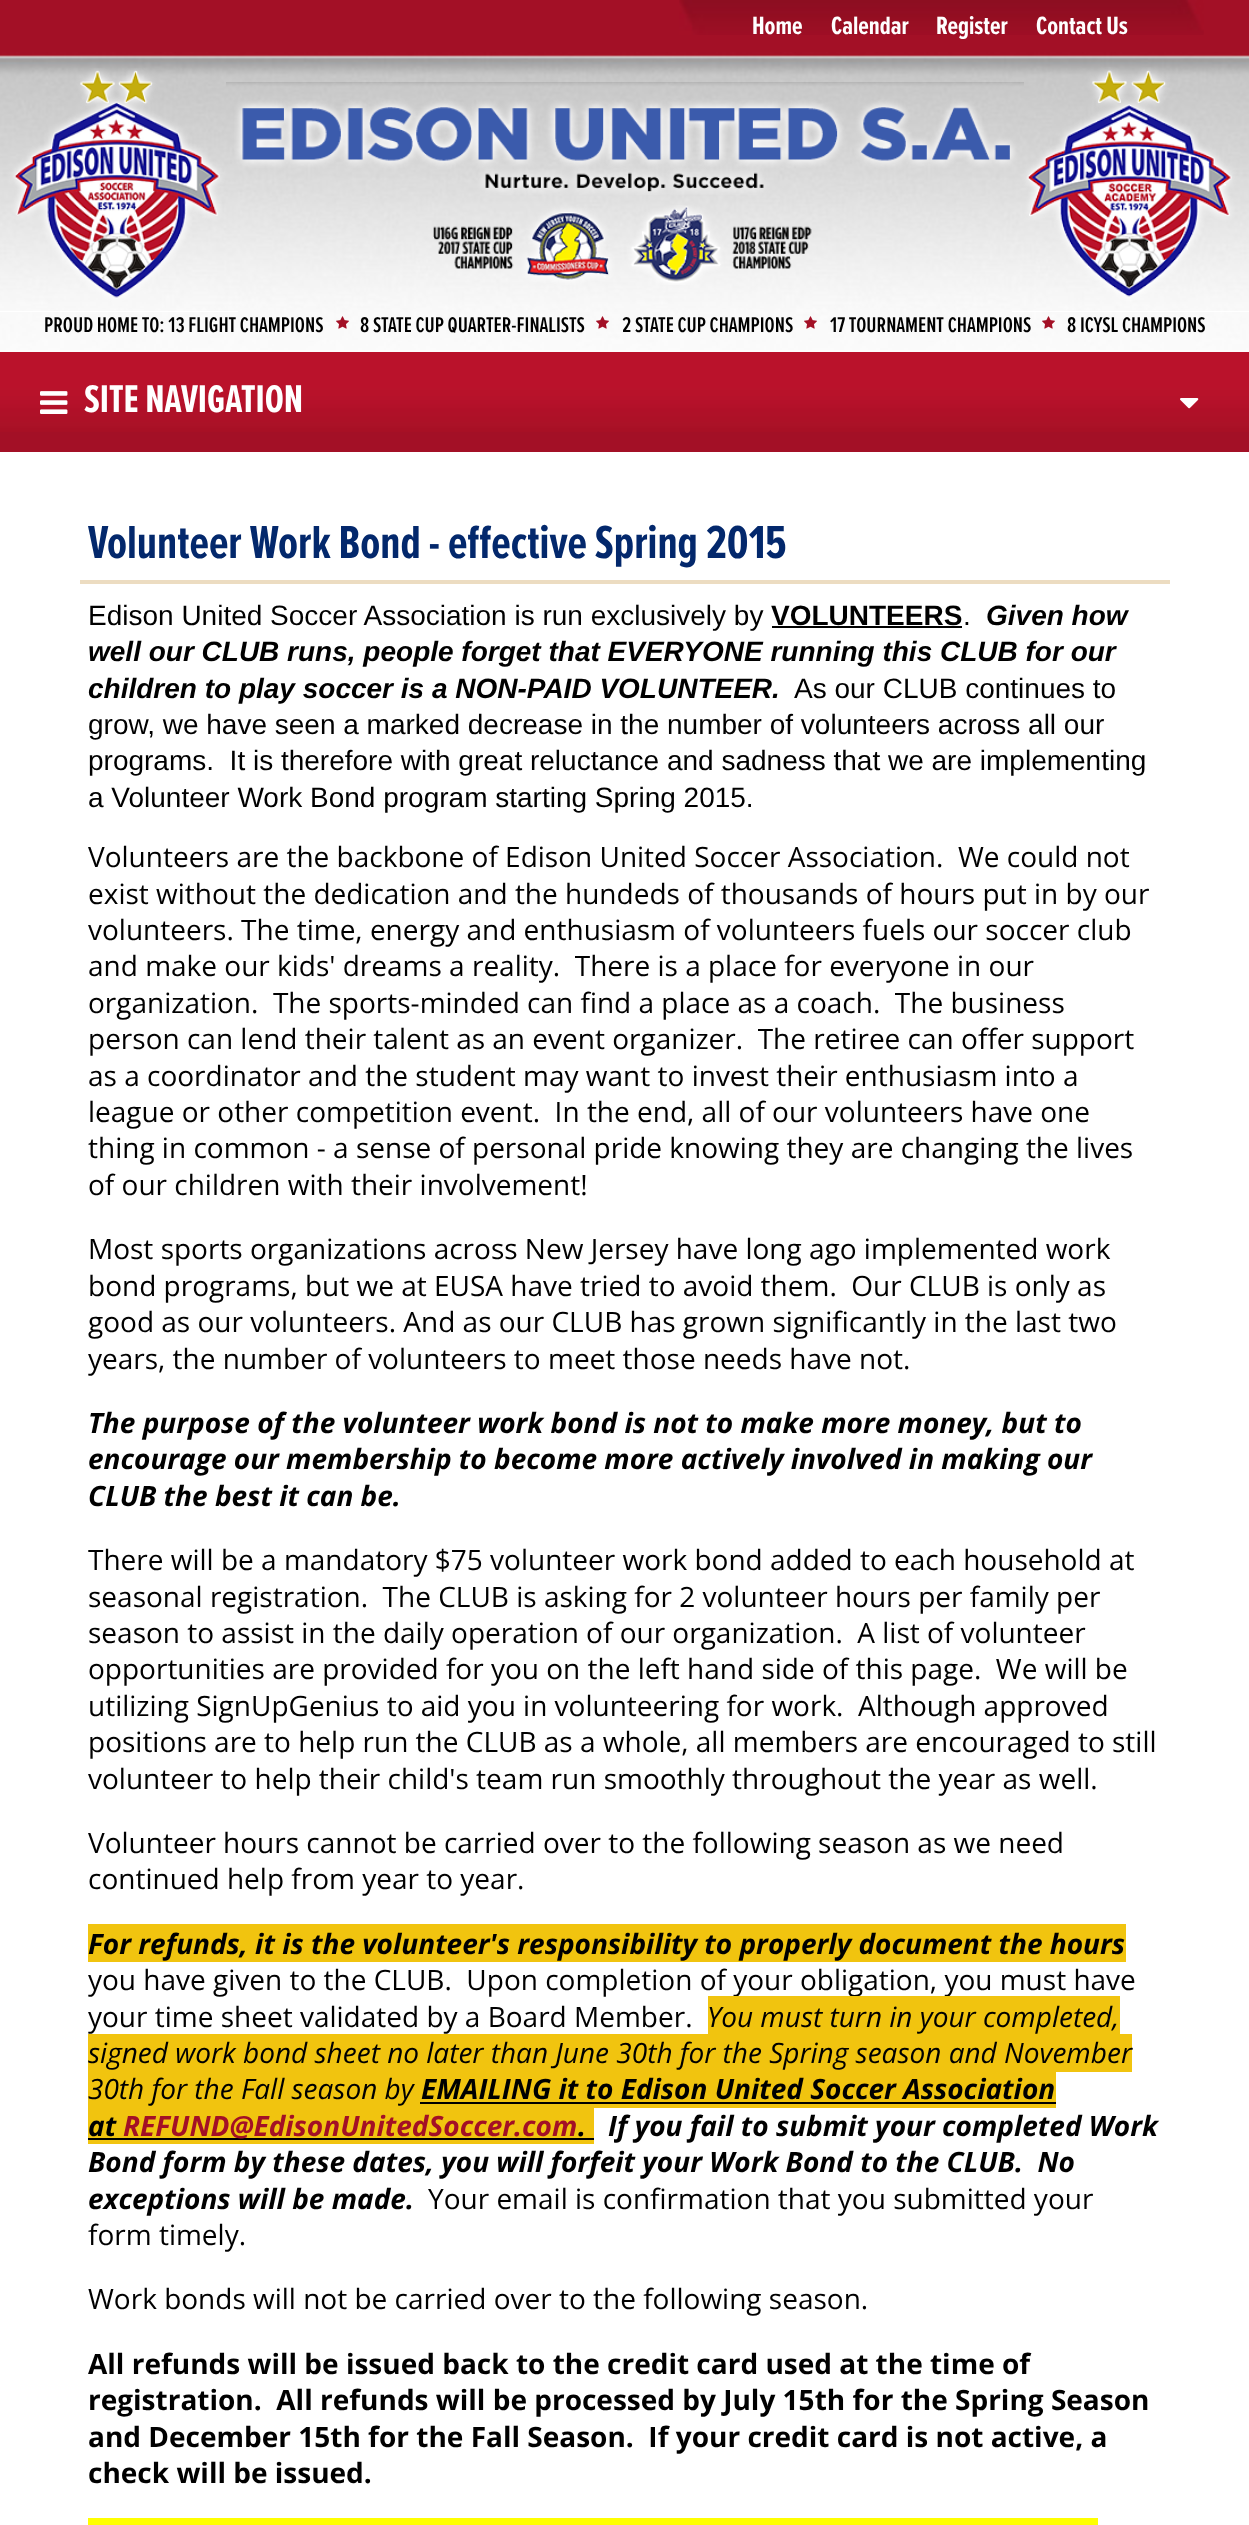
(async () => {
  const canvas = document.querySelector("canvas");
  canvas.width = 1249;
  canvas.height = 2525;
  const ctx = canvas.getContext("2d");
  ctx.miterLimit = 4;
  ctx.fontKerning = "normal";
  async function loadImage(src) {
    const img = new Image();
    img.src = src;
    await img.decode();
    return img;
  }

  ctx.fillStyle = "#a31026";
  ctx.fillRect(0, 0, 1249, 2525);
  ctx.drawImage(await loadImage("img/1.png"), 679, 0, 525, 35);
  ctx.fillStyle = "#fefefe";
  ctx.fillRect(0, 350, 1249, 2);
  ctx.drawImage(await loadImage("img/2.png"), 0, 52, 1249, 298);
  ctx.drawImage(await loadImage("img/4.png"), 226, 82, 798, 113);
  ctx.drawImage(await loadImage("img/3.png"), 0, 68, 238, 244);
  ctx.drawImage(await loadImage("img/5.png"), 1012, 67, 237, 245);
  ctx.drawImage(await loadImage("img/6.png"), 433, 205, 379, 80);
  ctx.drawImage(await loadImage("img/7.png"), 336, 316, 13, 13);
  ctx.drawImage(await loadImage("img/8.png"), 596, 316, 13, 13);
  ctx.drawImage(await loadImage("img/9.png"), 804, 316, 13, 13);
  ctx.drawImage(await loadImage("img/10.png"), 1042, 316, 13, 13);
  ctx.drawImage(await loadImage("img/11.png"), 0, 352, 1249, 80);
  ctx.drawImage(await loadImage("img/12.png"), 40, 391, 28, 23);
  ctx.drawImage(await loadImage("img/13.png"), 1180, 398, 19, 11);
  for (const [x, y, w, h, color] of [
    [0, 452, 1249, 2073, "#ffffff"],
    [80, 580, 1090, 4, "#ecdcc1"],
    [772, 626, 190, 2, "#000000"],
    [88, 1924, 1038, 38, "#f1c40f"],
    [88, 2034, 1044, 38, "#f1c40f"],
    [420, 2072, 636, 36, "#f1c40f"],
    [420, 2102, 636, 2, "#000000"],
    [88, 2072, 332, 34, "#f1c40f"],
    [88, 2106, 490, 38, "#f1c40f"],
    [578, 2108, 16, 36, "#f1c40f"],
    [88, 2138, 490, 2, "#000000"],
    [578, 2138, 16, 2, "#000000"],
    [88, 2518, 1010, 7, "#ffff00"],
  ]) {
    ctx.fillStyle = color;
    ctx.fillRect(x, y, w, h);
  }
  ctx.font = "bold 26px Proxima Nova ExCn";
  ctx.fillStyle = "#ffffff";
  for (const [text, x, y] of [
    ["Home", 752, 34],
    ["Calendar", 831, 34],
    ["Register", 936, 34],
    ["Contact Us", 1036, 34],
  ]) {
    ctx.fillText(text, x, y);
  }
  ctx.font = "600 22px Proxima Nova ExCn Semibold";
  ctx.fillStyle = "#000000";
  for (const [text, x, y] of [
    ["PROUD HOME TO: 13 FLIGHT CHAMPIONS", 44, 332],
    ["8 STATE CUP QUARTER-FINALISTS", 360, 332],
    ["2 STATE CUP CHAMPIONS", 622, 332],
    ["17 TOURNAMENT CHAMPIONS", 830, 332],
    ["8 ICYSL CHAMPIONS", 1067, 332],
  ]) {
    ctx.fillText(text, x, y);
  }
  ctx.font = "bold 40px Proxima Nova ExCn";
  ctx.fillStyle = "#ffffff";
  ctx.fillText("SITE NAVIGATION", 84, 412);
  ctx.font = "bold 48px Proxima Nova ExCn";
  ctx.fillStyle = "#03286c";
  ctx.fillText("Volunteer Work Bond - effective Spring 2015", 88, 558);
  ctx.font = "28px Liberation Sans";
  ctx.fillStyle = "#000000";
  ctx.fillText("Edison United Soccer Association is run exclusively by", 88, 625);
  ctx.font = "bold 28px Liberation Sans";
  ctx.fillText("VOLUNTEERS", 771, 625);
  ctx.font = "28px Liberation Sans";
  ctx.fillText(".", 963, 625);
  ctx.font = "italic bold 28px Liberation Sans";
  for (const [text, x, y] of [
    ["Given how", 986, 625],
    ["well our CLUB runs, people forget that EVERYONE running this CLUB for our", 88, 661],
    ["children to play soccer is a NON-PAID VOLUNTEER.", 88, 698],
  ]) {
    ctx.fillText(text, x, y);
  }
  ctx.font = "28px Liberation Sans";
  for (const [text, x, y] of [
    ["As our CLUB continues to", 794, 698],
    ["grow, we have seen a marked decrease in the number of volunteers across all our", 88, 734],
    ["programs.  It is therefore with great reluctance and sadness that we are implementing", 88, 770],
    ["a Volunteer Work Bond program starting Spring 2015.", 88, 807],
  ]) {
    ctx.fillText(text, x, y);
  }
  ctx.font = "28px Open Sans";
  for (const [text, x, y] of [
    ["Volunteers are the backbone of Edison United Soccer Association.  We could not", 88, 867],
    ["exist without the dedication and the hundeds of thousands of hours put in by our", 88, 904],
    ["volunteers. The time, energy and enthusiasm of volunteers fuels our soccer club", 88, 940],
    ["and make our kids' dreams a reality.  There is a place for everyone in our", 88, 976],
    ["organization.  The sports-minded can find a place as a coach.  The business", 88, 1013],
    ["person can lend their talent as an event organizer.  The retiree can offer support", 88, 1049],
    ["as a coordinator and the student may want to invest their enthusiasm into a", 88, 1086],
    ["league or other competition event.  In the end, all of our volunteers have one", 88, 1122],
    ["thing in common - a sense of personal pride knowing they are changing the lives", 88, 1158],
    ["of our children with their involvement!", 88, 1195],
    ["Most sports organizations across New Jersey have long ago implemented work", 88, 1259],
    ["bond programs, but we at EUSA have tried to avoid them.  Our CLUB is only as", 88, 1296],
    ["good as our volunteers. And as our CLUB has grown significantly in the last two", 88, 1332],
    ["years, the number of volunteers to meet those needs have not.", 88, 1369],
  ]) {
    ctx.fillText(text, x, y);
  }
  ctx.font = "italic bold 28px Open Sans";
  for (const [text, x, y] of [
    ["The purpose of the volunteer work bond is not to make more money, but to", 88, 1433],
    ["encourage our membership to become more actively involved in making our", 88, 1469],
    ["CLUB the best it can be.", 88, 1506],
  ]) {
    ctx.fillText(text, x, y);
  }
  ctx.font = "28px Open Sans";
  for (const [text, x, y] of [
    ["There will be a mandatory $75 volunteer work bond added to each household at", 88, 1570],
    ["seasonal registration.  The CLUB is asking for 2 volunteer hours per family per", 88, 1607],
    ["season to assist in the daily operation of our organization.  A list of volunteer", 88, 1643],
    ["opportunities are provided for you on the left hand side of this page.  We will be", 88, 1679],
    ["utilizing SignUpGenius to aid you in volunteering for work.  Although approved", 88, 1716],
    ["positions are to help run the CLUB as a whole, all members are encouraged to still", 88, 1752],
    ["volunteer to help their child's team run smoothly throughout the year as well.", 88, 1789],
    ["Volunteer hours cannot be carried over to the following season as we need", 88, 1853],
    ["continued help from year to year.", 88, 1889],
  ]) {
    ctx.fillText(text, x, y);
  }
  ctx.font = "italic bold 28px Open Sans";
  ctx.fillText("For refunds, it is the volunteer's responsibility to properly document the hours", 88, 1954);
  ctx.font = "28px Open Sans";
  ctx.fillText("you have given to the CLUB.  Upon completion of your obligation, you must have", 88, 1990);
  ctx.fillText("your time sheet validated by a Board Member.", 88, 2027);
  ctx.fillStyle = "#f1c40f";
  ctx.fillRect(708, 1996, 412, 38);
  ctx.font = "italic 28px Open Sans";
  ctx.fillStyle = "#000000";
  for (const [text, x, y] of [
    ["You must turn in your completed,", 707, 2027],
    ["signed work bond sheet no later than June 30th for the Spring season and November", 88, 2063],
    ["30th for the Fall season by", 88, 2099],
  ]) {
    ctx.fillText(text, x, y);
  }
  ctx.font = "italic bold 28px Open Sans";
  ctx.fillText("EMAILING it to Edison United Soccer Association", 421, 2099);
  ctx.fillText("at", 88, 2136);
  ctx.fillStyle = "#a31026";
  ctx.fillText("REFUND@EdisonUnitedSoccer.com", 123, 2136);
  ctx.fillStyle = "#000000";
  for (const [text, x, y] of [
    [".", 578, 2136],
    ["If you fail to submit your completed Work", 608, 2136],
    ["Bond form by these dates, you will forfeit your Work Bond to the CLUB.  No", 88, 2172],
    ["exceptions will be made.", 88, 2209],
  ]) {
    ctx.fillText(text, x, y);
  }
  ctx.font = "28px Open Sans";
  for (const [text, x, y] of [
    ["Your email is confirmation that you submitted your", 428, 2209],
    ["form timely.", 88, 2245],
    ["Work bonds will not be carried over to the following season.", 88, 2309],
  ]) {
    ctx.fillText(text, x, y);
  }
  ctx.font = "bold 28px Open Sans";
  for (const [text, x, y] of [
    ["All refunds will be issued back to the credit card used at the time of", 88, 2374],
    ["registration.  All refunds will be processed by July 15th for the Spring Season", 88, 2410],
    ["and December 15th for the Fall Season.  If your credit card is not active, a", 88, 2447],
    ["check will be issued.", 88, 2483],
  ]) {
    ctx.fillText(text, x, y);
  }
})();
